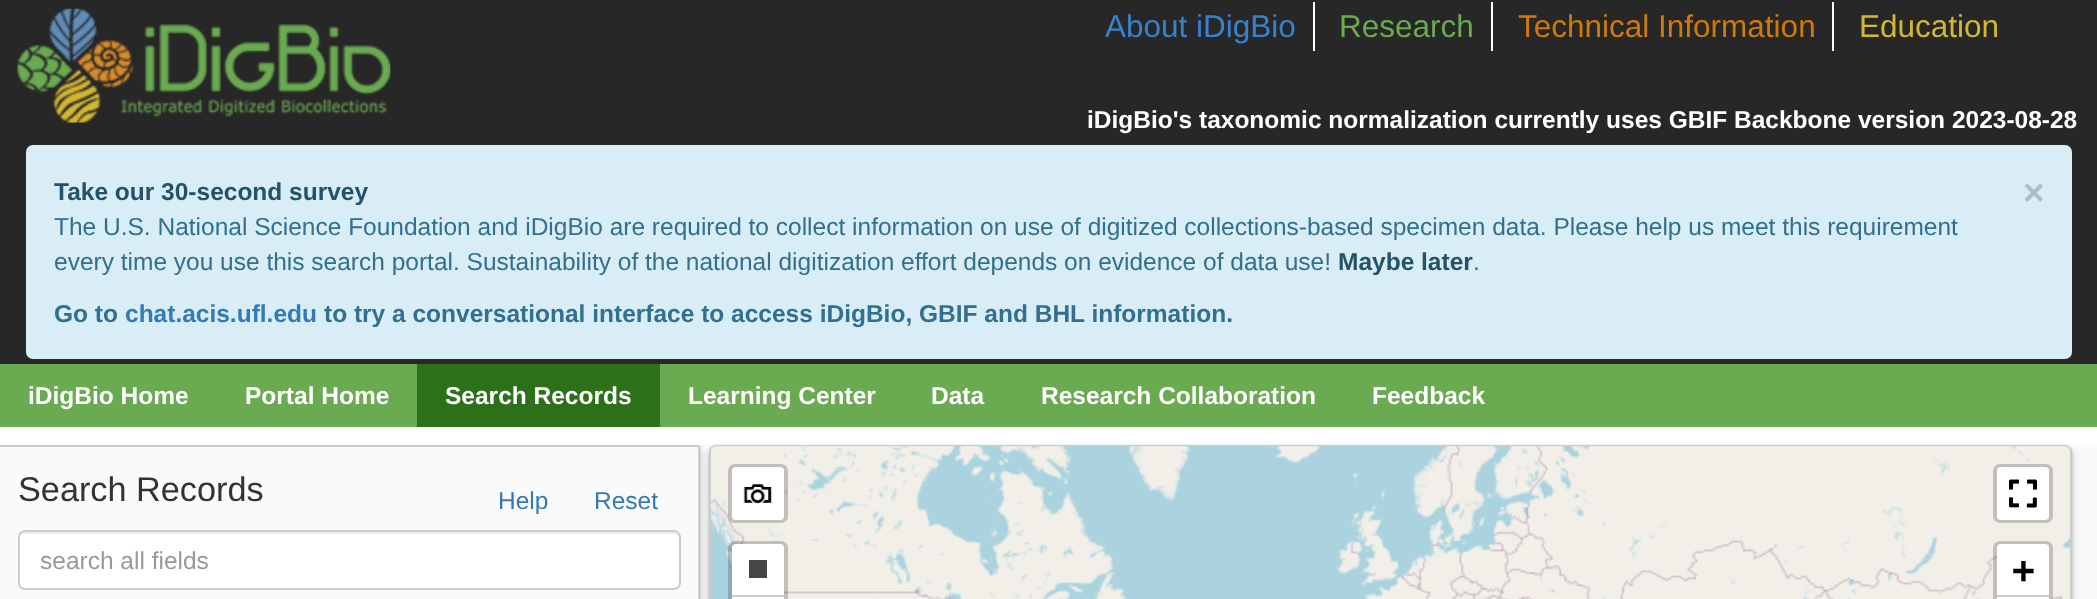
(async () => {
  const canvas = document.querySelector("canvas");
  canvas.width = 2097;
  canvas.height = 599;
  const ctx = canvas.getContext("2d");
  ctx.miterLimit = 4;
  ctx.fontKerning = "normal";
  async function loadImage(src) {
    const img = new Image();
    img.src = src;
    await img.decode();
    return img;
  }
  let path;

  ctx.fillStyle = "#ffffff";
  ctx.fillRect(0, 0, 2097, 599);
  ctx.fillStyle = "#272727";
  ctx.fillRect(0, 0, 2097, 364);
  ctx.drawImage(await loadImage("img/1.png"), 17, 8, 374, 115);
  for (const [x, y, w, h, color] of [
    [1313, 2, 2, 49, "#ffffff"],
    [1491, 2, 2, 49, "#ffffff"],
    [1832, 2, 2, 49, "#ffffff"],
  ]) {
    ctx.fillStyle = color;
    ctx.fillRect(x, y, w, h);
  }
  ctx.fillStyle = "#d9edf7";
  ctx.beginPath();
  ctx.roundRect(26, 145, 2046, 214, 7);
  ctx.fill();
  for (const [x, y, w, h, color] of [
    [0, 364, 2097, 63, "#6aaa51"],
    [417, 364, 243, 63, "#2c711a"],
    [0, 445, 2097, 154, "#fafafa"],
  ]) {
    ctx.fillStyle = color;
    ctx.fillRect(x, y, w, h);
  }
  ctx.save();
  ctx.beginPath();
  ctx.rect(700, 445, 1, 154);
  ctx.clip();
  ctx.fillStyle = "rgba(0, 0, 0, 0.23)";
  ctx.filter = "blur(1px)";
  ctx.beginPath();
  ctx.rect(0, 446, 700, 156);
  ctx.fill();
  ctx.filter = "none";
  ctx.restore();
  ctx.save();
  ctx.beginPath();
  ctx.rect(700, 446, 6, 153);
  ctx.clip();
  ctx.fillStyle = "rgba(0, 0, 0, 0.19)";
  ctx.filter = "blur(5px)";
  ctx.beginPath();
  ctx.rect(0, 450, 700, 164);
  ctx.fill();
  ctx.filter = "none";
  ctx.restore();
  ctx.fillStyle = "#cccccc";
  ctx.fillRect(0, 445, 700, 2);
  ctx.fillRect(698, 445, 2, 154);
  ctx.fillStyle = "#ffffff";
  ctx.beginPath();
  ctx.roundRect(18, 530, 663, 60, 7);
  ctx.fill();
  ctx.fillStyle = "#ececec";
  path = new Path2D("M24 534H674C677 534 679 536 679 539V537C679 534 677 532 674 532H24C21 532 19 534 19 537V539C19 536 22 534 24 534Z");
  ctx.fill(path);
  ctx.beginPath();
  ctx.roundRect(19, 531, 661, 58, 6);
  ctx.strokeStyle = "#cccccc";
  ctx.lineWidth = 2;
  ctx.stroke();
  ctx.fillStyle = "rgba(0, 0, 0, 0.23)";
  ctx.filter = "blur(1px)";
  ctx.beginPath();
  ctx.roundRect(709, 446, 1363, 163, 7);
  ctx.fill();
  ctx.filter = "none";
  ctx.fillStyle = "rgba(0, 0, 0, 0.19)";
  ctx.filter = "blur(5px)";
  ctx.beginPath();
  ctx.roundRect(709, 450, 1363, 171, 7);
  ctx.fill();
  ctx.filter = "none";
  ctx.beginPath();
  ctx.roundRect(710, 446, 1361, 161, 6);
  ctx.stroke();
  ctx.drawImage(await loadImage("img/2.png"), 711, 446, 231, 153);
  ctx.drawImage(await loadImage("img/3.png"), 942, 446, 448, 153);
  ctx.drawImage(await loadImage("img/4.png"), 1390, 446, 448, 153);
  ctx.drawImage(await loadImage("img/5.png"), 1838, 446, 232, 153);
  ctx.beginPath();
  ctx.roundRect(730, 466, 56, 55, 5);
  ctx.strokeStyle = "rgba(0, 0, 0, 0.2)";
  ctx.lineWidth = 4;
  ctx.stroke();
  ctx.fillStyle = "#ffffff";
  ctx.beginPath();
  ctx.roundRect(732, 467, 52, 53, 4);
  ctx.fill();
  ctx.drawImage(await loadImage("img/6.png"), 743, 483, 29, 21);
  ctx.beginPath();
  ctx.roundRect(730, 543, 56, 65, 5);
  ctx.stroke();
  ctx.beginPath();
  ctx.roundRect(732, 544, 52, 51, [4, 4, 0, 0]);
  ctx.fill();
  for (const [x, y, w, h, color] of [
    [749, 560, 18, 18, "#464646"],
    [732, 595, 52, 2, "#cccccc"],
    [732, 597, 52, 2, "#ffffff"],
  ]) {
    ctx.fillStyle = color;
    ctx.fillRect(x, y, w, h);
  }
  ctx.beginPath();
  ctx.roundRect(1995, 466, 56, 55, 5);
  ctx.stroke();
  ctx.beginPath();
  ctx.roundRect(1997, 467, 52, 53, 4);
  ctx.fill();
  ctx.drawImage(await loadImage("img/7.png"), 2009, 479, 28, 29);
  ctx.beginPath();
  ctx.roundRect(1995, 543, 56, 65, 5);
  ctx.stroke();
  ctx.beginPath();
  ctx.roundRect(1997, 544, 52, 53, [4, 4, 0, 0]);
  ctx.fill();
  ctx.fillStyle = "#cccccc";
  ctx.fillRect(1997, 595, 52, 2);
  ctx.fillStyle = "#ffffff";
  ctx.fillRect(1997, 597, 52, 2);
  ctx.font = "31.5px Liberation Sans";
  ctx.fillStyle = "#3782cd";
  ctx.fillText("About iDigBio", 1105, 37);
  ctx.fillStyle = "#6aaa51";
  ctx.fillText("Research", 1339, 37);
  ctx.fillStyle = "#cf7a0b";
  ctx.fillText("Technical Information", 1518, 37);
  ctx.fillStyle = "#d3b833";
  ctx.fillText("Education", 1859, 37);
  ctx.font = "bold 24.5px Liberation Sans";
  ctx.fillStyle = "#ffffff";
  ctx.fillText("iDigBio's taxonomic normalization currently uses GBIF Backbone version 2023-08-28", 1087, 128);
  ctx.fillStyle = "#245269";
  ctx.fillText("Take our 30-second survey", 54, 200);
  ctx.font = "bold 37px Liberation Sans";
  ctx.fillStyle = "#aebec6";
  ctx.fillText("×", 2023, 205);
  ctx.font = "24.5px Liberation Sans";
  ctx.fillStyle = "#31708f";
  ctx.fillText("The U.S. National Science Foundation and iDigBio are required to collect information on use of digitized collections-based specimen data. Please help us meet this requirement", 54, 235);
  ctx.fillText("every time you use this search portal. Sustainability of the national digitization effort depends on evidence of data use!", 54, 270);
  ctx.font = "bold 24.5px Liberation Sans";
  ctx.fillStyle = "#245269";
  ctx.fillText("Maybe later", 1338, 270);
  ctx.font = "24.5px Liberation Sans";
  ctx.fillStyle = "#31708f";
  ctx.fillText(".", 1473, 270);
  ctx.font = "bold 24.5px Liberation Sans";
  ctx.fillText("Go to", 54, 322);
  ctx.fillStyle = "#337ab7";
  ctx.fillText("chat.acis.ufl.edu", 125, 322);
  ctx.fillStyle = "#31708f";
  ctx.fillText("to try a conversational interface to access iDigBio, GBIF and BHL information.", 324, 322);
  ctx.fillStyle = "#ffffff";
  for (const [text, x, y] of [
    ["iDigBio Home", 28, 404],
    ["Portal Home", 245, 404],
    ["Search Records", 445, 404],
    ["Learning Center", 688, 404],
    ["Data", 931, 404],
    ["Research Collaboration", 1041, 404],
    ["Feedback", 1372, 404],
  ]) {
    ctx.fillText(text, x, y);
  }
  ctx.font = "34.25px Liberation Sans";
  ctx.fillStyle = "#333333";
  ctx.fillText("Search Records", 18, 501);
  ctx.font = "24.5px Liberation Sans";
  ctx.fillStyle = "#337ab7";
  ctx.fillText("Help", 498, 509);
  ctx.fillText("Reset", 594, 509);
  ctx.fillStyle = "#999999";
  ctx.fillText("search all fields", 40, 569);
  ctx.font = "bold 38px DejaVu Sans Mono";
  ctx.fillStyle = "#000000";
  ctx.fillText("+", 2012, 583);
})();
